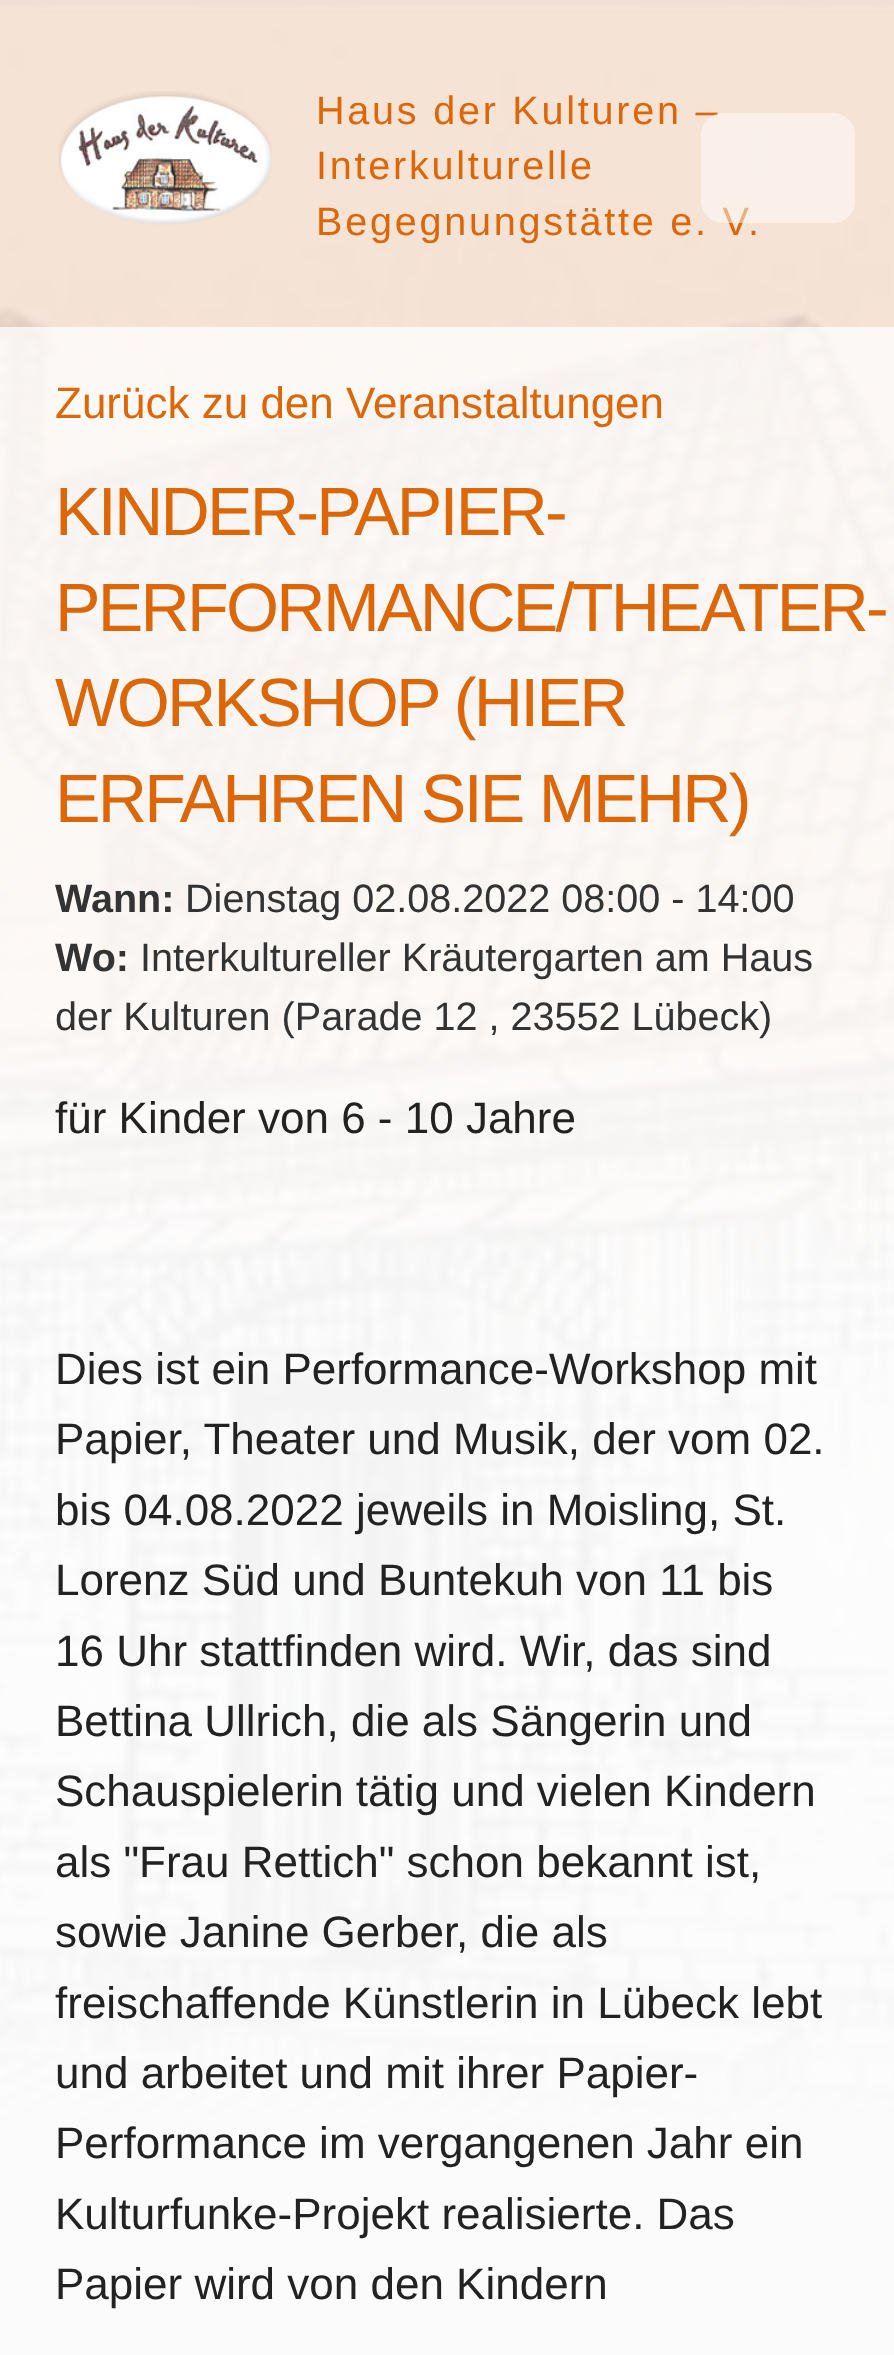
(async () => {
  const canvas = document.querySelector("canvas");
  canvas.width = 894;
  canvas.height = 2355;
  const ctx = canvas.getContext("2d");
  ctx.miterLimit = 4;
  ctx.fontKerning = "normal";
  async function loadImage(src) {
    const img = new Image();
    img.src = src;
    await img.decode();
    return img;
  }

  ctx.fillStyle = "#f0eff3";
  ctx.fillRect(0, 0, 894, 2355);
  ctx.drawImage(await loadImage("img/1.png"), 0, 0, 894, 2171);
  ctx.drawImage(await loadImage("img/2.png"), 58, 91, 214, 134);
  ctx.fillStyle = "rgba(255, 255, 255, 0.75)";
  ctx.fillRect(0, 327, 894, 2028);
  ctx.letterSpacing = "2.75px";
  ctx.font = "39.6px Liberation Sans";
  ctx.fillStyle = "#db6708";
  for (const [text, x, y] of [
    ["Haus der Kulturen –", 316, 124],
    ["Interkulturelle", 316, 179],
    ["Begegnungstätte e. V.", 316, 235],
  ]) {
    ctx.fillText(text, x, y);
  }
  ctx.fillStyle = "rgba(255, 255, 255, 0.48)";
  ctx.beginPath();
  ctx.roundRect(701, 113, 154, 110, 22);
  ctx.fill();
  ctx.letterSpacing = "0px";
  ctx.font = "44px Liberation Sans";
  ctx.fillStyle = "#db6708";
  ctx.fillText("Zurück zu den Veranstaltungen", 55, 418);
  ctx.letterSpacing = "-2.75px";
  ctx.font = "68.25px Liberation Sans";
  for (const [text, x, y] of [
    ["KINDER-PAPIER-", 55, 535],
    ["PERFORMANCE/THEATER-", 55, 631],
    ["WORKSHOP (HIER", 55, 726],
    ["ERFAHREN SIE MEHR)", 55, 822],
  ]) {
    ctx.fillText(text, x, y);
  }
  ctx.letterSpacing = "0px";
  ctx.font = "bold 39.6px Liberation Sans";
  ctx.fillStyle = "#333333";
  ctx.fillText("Wann:", 55, 912);
  ctx.font = "39.6px Liberation Sans";
  ctx.fillText("Dienstag 02.08.2022 08:00 - 14:00", 185, 912);
  ctx.font = "bold 39.6px Liberation Sans";
  ctx.fillText("Wo:", 55, 971);
  ctx.font = "39.6px Liberation Sans";
  ctx.fillText("Interkultureller Kräutergarten am Haus", 140, 971);
  ctx.fillText("der Kulturen (Parade 12 , 23552 Lübeck)", 55, 1030);
  ctx.font = "44px Liberation Sans";
  ctx.fillStyle = "#222222";
  for (const [text, x, y] of [
    ["für Kinder von 6 - 10 Jahre", 55, 1133],
    ["Dies ist ein Performance-Workshop mit", 55, 1384],
    ["Papier, Theater und Musik, der vom 02.", 55, 1454],
    ["bis 04.08.2022 jeweils in Moisling, St.", 55, 1525],
    ["Lorenz Süd und Buntekuh von 11 bis", 55, 1595],
    ["16 Uhr stattfinden wird. Wir, das sind", 55, 1666],
    ["Bettina Ullrich, die als Sängerin und", 55, 1736],
    ["Schauspielerin tätig und vielen Kindern", 55, 1806],
    ["als \"Frau Rettich\" schon bekannt ist,", 55, 1877],
    ["sowie Janine Gerber, die als", 55, 1947],
    ["freischaffende Künstlerin in Lübeck lebt", 55, 2018],
    ["und arbeitet und mit ihrer Papier-", 55, 2088],
    ["Performance im vergangenen Jahr ein", 55, 2158],
    ["Kulturfunke-Projekt realisierte. Das", 55, 2229],
    ["Papier wird von den Kindern", 55, 2299],
  ]) {
    ctx.fillText(text, x, y);
  }
})();
